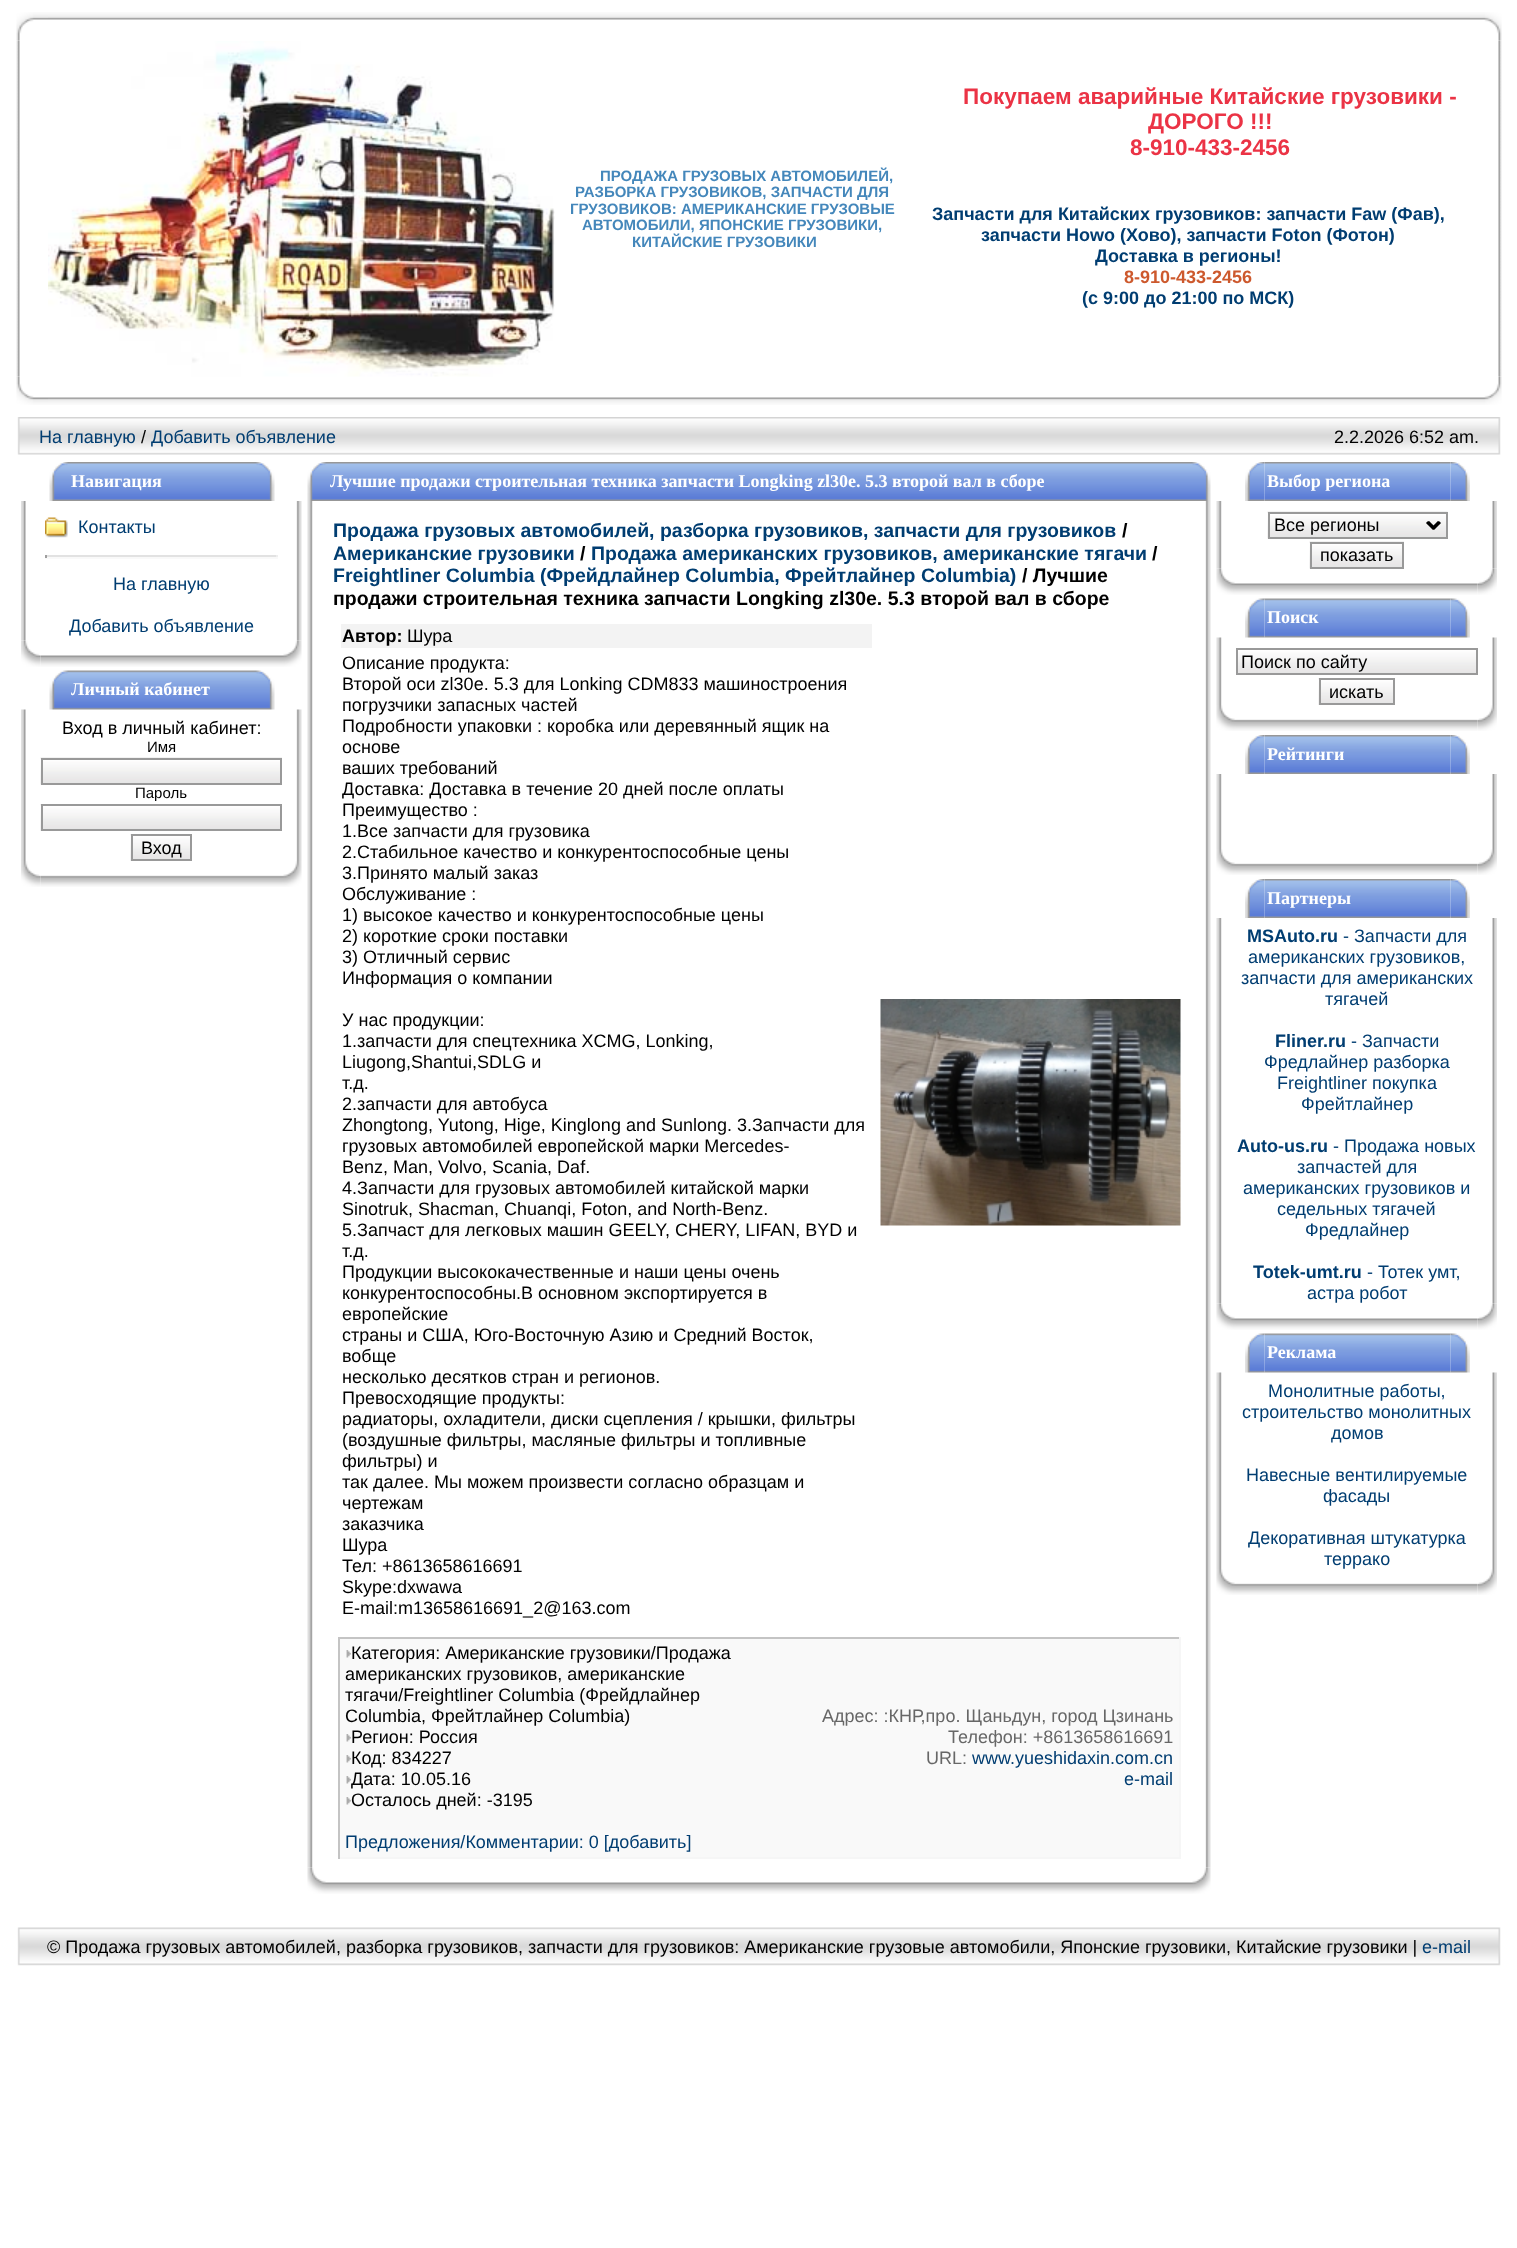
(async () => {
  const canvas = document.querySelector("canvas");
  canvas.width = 1517;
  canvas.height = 2248;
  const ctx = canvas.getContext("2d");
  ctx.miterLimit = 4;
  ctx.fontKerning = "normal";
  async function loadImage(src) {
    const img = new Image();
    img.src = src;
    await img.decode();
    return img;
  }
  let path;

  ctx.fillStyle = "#ffffff";
  ctx.fillRect(0, 0, 1517, 2248);
  ctx.drawImage(await loadImage("img/4.png"), 16, 40, 4, 337);
  ctx.drawImage(await loadImage("img/1.png"), 16, 12, 32, 29);
  ctx.drawImage(await loadImage("img/2.png"), 48, 12, 1422, 8);
  ctx.drawImage(await loadImage("img/6.png"), 1498, 40, 4, 337);
  ctx.drawImage(await loadImage("img/3.png"), 1470, 12, 32, 29);
  ctx.drawImage(await loadImage("img/5.png"), 48, 41, 507, 336);
  ctx.drawImage(await loadImage("img/7.png"), 16, 376, 32, 29);
  ctx.drawImage(await loadImage("img/8.png"), 48, 397, 1422, 8);
  ctx.drawImage(await loadImage("img/9.png"), 1470, 376, 32, 29);
  ctx.drawImage(await loadImage("img/10.png"), 17, 417, 22, 38);
  ctx.drawImage(await loadImage("img/11.png"), 39, 417, 864, 38);
  ctx.drawImage(await loadImage("img/12.png"), 903, 417, 576, 38);
  ctx.drawImage(await loadImage("img/13.png"), 1479, 417, 22, 38);
  ctx.drawImage(await loadImage("img/14.png"), 49, 462, 20, 39);
  ctx.drawImage(await loadImage("img/15.png"), 69, 462, 186, 39);
  ctx.drawImage(await loadImage("img/16.png"), 255, 462, 20, 39);
  ctx.drawImage(await loadImage("img/17.png"), 21, 501, 5, 140);
  ctx.drawImage(await loadImage("img/18.png"), 45, 517, 23, 21);
  for (const [x, y, w, h, color] of [
    [45, 555, 233, 2, "#e2e2e2"],
    [276, 555, 2, 3, "#eeeeee"],
    [45, 557, 233, 2, "#f9f9f9"],
    [45, 555, 2, 3, "#9f9f9f"],
  ]) {
    ctx.fillStyle = color;
    ctx.fillRect(x, y, w, h);
  }
  ctx.drawImage(await loadImage("img/19.png"), 296, 501, 6, 140);
  ctx.drawImage(await loadImage("img/20.png"), 21, 640, 20, 27);
  ctx.drawImage(await loadImage("img/21.png"), 40, 655, 242, 12);
  ctx.drawImage(await loadImage("img/22.png"), 282, 640, 20, 27);
  ctx.drawImage(await loadImage("img/23.png"), 49, 670, 20, 40);
  ctx.drawImage(await loadImage("img/24.png"), 69, 670, 186, 40);
  ctx.drawImage(await loadImage("img/25.png"), 255, 670, 20, 40);
  ctx.drawImage(await loadImage("img/26.png"), 21, 709, 5, 152);
  ctx.drawImage(await loadImage("img/27.png"), 40, 757, 242, 28);
  ctx.strokeStyle = "#999999";
  ctx.lineWidth = 2;
  ctx.strokeRect(42, 759, 239, 25);
  ctx.drawImage(await loadImage("img/28.png"), 40, 804, 240, 27);
  ctx.strokeRect(42, 805, 239, 25);
  ctx.drawImage(await loadImage("img/29.png"), 130, 834, 60, 27);
  ctx.strokeRect(132, 835, 59, 25);
  ctx.drawImage(await loadImage("img/30.png"), 296, 709, 6, 152);
  ctx.drawImage(await loadImage("img/31.png"), 21, 861, 20, 26);
  ctx.drawImage(await loadImage("img/32.png"), 40, 875, 242, 12);
  ctx.drawImage(await loadImage("img/33.png"), 282, 861, 20, 26);
  ctx.drawImage(await loadImage("img/14.png"), 307, 462, 20, 39);
  ctx.drawImage(await loadImage("img/34.png"), 327, 462, 864, 39);
  ctx.drawImage(await loadImage("img/35.png"), 1191, 462, 20, 39);
  ctx.drawImage(await loadImage("img/36.png"), 307, 501, 6, 1367);
  ctx.fillStyle = "#f3f3f3";
  ctx.fillRect(341, 624, 531, 24);
  ctx.drawImage(await loadImage("img/37.png"), 880, 999, 301, 227);
  for (const [x, y, w, h, color] of [
    [340, 1639, 839, 218, "#f9f9f9"],
    [338, 1637, 843, 2, "#c4c4c4"],
    [338, 1857, 421, 2, "#f6f6f6"],
    [338, 1637, 2, 222, "#c4c4c4"],
  ]) {
    ctx.fillStyle = color;
    ctx.fillRect(x, y, w, h);
  }
  ctx.drawImage(await loadImage("img/38.png"), 346, 1650, 5, 8);
  ctx.drawImage(await loadImage("img/38.png"), 346, 1734, 5, 8);
  ctx.drawImage(await loadImage("img/38.png"), 346, 1755, 5, 8);
  ctx.drawImage(await loadImage("img/38.png"), 346, 1776, 5, 8);
  ctx.drawImage(await loadImage("img/38.png"), 346, 1797, 5, 8);
  ctx.fillStyle = "#f6f6f6";
  ctx.fillRect(1179, 1637, 2, 222);
  ctx.fillRect(759, 1857, 422, 2);
  ctx.drawImage(await loadImage("img/39.png"), 1205, 501, 6, 1367);
  ctx.drawImage(await loadImage("img/40.png"), 307, 1867, 20, 27);
  ctx.drawImage(await loadImage("img/41.png"), 327, 1882, 864, 12);
  ctx.drawImage(await loadImage("img/22.png"), 1191, 1867, 20, 27);
  ctx.drawImage(await loadImage("img/42.png"), 1245, 462, 20, 39);
  ctx.drawImage(await loadImage("img/43.png"), 1264, 462, 187, 39);
  ctx.drawImage(await loadImage("img/44.png"), 1450, 462, 20, 39);
  ctx.drawImage(await loadImage("img/45.png"), 1216, 501, 6, 68);
  ctx.drawImage(await loadImage("img/46.png"), 1267, 511, 181, 28);
  ctx.strokeRect(1269, 513, 178, 25);
  path = new Path2D("M1427 522L1433 528L1439 522");
  ctx.strokeStyle = "#000000";
  ctx.lineWidth = 3;
  ctx.stroke(path);
  ctx.drawImage(await loadImage("img/47.png"), 1309, 541, 95, 28);
  ctx.strokeStyle = "#999999";
  ctx.lineWidth = 2;
  ctx.strokeRect(1311, 543, 92, 25);
  ctx.drawImage(await loadImage("img/48.png"), 1492, 501, 5, 68);
  ctx.drawImage(await loadImage("img/40.png"), 1216, 568, 20, 27);
  ctx.drawImage(await loadImage("img/49.png"), 1236, 583, 242, 12);
  ctx.drawImage(await loadImage("img/50.png"), 1477, 568, 20, 27);
  ctx.drawImage(await loadImage("img/51.png"), 1245, 598, 20, 40);
  ctx.drawImage(await loadImage("img/52.png"), 1264, 598, 187, 40);
  ctx.drawImage(await loadImage("img/53.png"), 1450, 598, 20, 40);
  ctx.drawImage(await loadImage("img/54.png"), 1216, 637, 6, 68);
  ctx.drawImage(await loadImage("img/55.png"), 1238, 650, 238, 23);
  ctx.strokeRect(1237, 649, 240, 25);
  ctx.drawImage(await loadImage("img/56.png"), 1318, 678, 75, 27);
  ctx.strokeRect(1320, 679, 74, 25);
  ctx.drawImage(await loadImage("img/57.png"), 1492, 637, 5, 68);
  ctx.drawImage(await loadImage("img/58.png"), 1216, 705, 20, 26);
  ctx.drawImage(await loadImage("img/59.png"), 1236, 719, 242, 12);
  ctx.drawImage(await loadImage("img/60.png"), 1477, 705, 20, 26);
  ctx.drawImage(await loadImage("img/42.png"), 1245, 735, 20, 39);
  ctx.drawImage(await loadImage("img/43.png"), 1264, 735, 187, 39);
  ctx.drawImage(await loadImage("img/44.png"), 1450, 735, 20, 39);
  ctx.drawImage(await loadImage("img/61.png"), 1216, 774, 6, 75);
  ctx.drawImage(await loadImage("img/62.png"), 1492, 774, 5, 75);
  ctx.drawImage(await loadImage("img/58.png"), 1216, 849, 20, 26);
  ctx.drawImage(await loadImage("img/59.png"), 1236, 863, 242, 12);
  ctx.drawImage(await loadImage("img/60.png"), 1477, 849, 20, 26);
  ctx.drawImage(await loadImage("img/42.png"), 1245, 879, 20, 39);
  ctx.drawImage(await loadImage("img/43.png"), 1264, 879, 187, 39);
  ctx.drawImage(await loadImage("img/44.png"), 1450, 879, 20, 39);
  ctx.drawImage(await loadImage("img/63.png"), 1216, 918, 6, 386);
  ctx.drawImage(await loadImage("img/64.png"), 1492, 918, 5, 386);
  ctx.drawImage(await loadImage("img/40.png"), 1216, 1303, 20, 27);
  ctx.drawImage(await loadImage("img/49.png"), 1236, 1318, 242, 12);
  ctx.drawImage(await loadImage("img/50.png"), 1477, 1303, 20, 27);
  ctx.drawImage(await loadImage("img/51.png"), 1245, 1333, 20, 40);
  ctx.drawImage(await loadImage("img/52.png"), 1264, 1333, 187, 40);
  ctx.drawImage(await loadImage("img/53.png"), 1450, 1333, 20, 40);
  ctx.drawImage(await loadImage("img/65.png"), 1216, 1372, 6, 197);
  ctx.drawImage(await loadImage("img/66.png"), 1492, 1372, 5, 197);
  ctx.drawImage(await loadImage("img/58.png"), 1216, 1569, 20, 26);
  ctx.drawImage(await loadImage("img/59.png"), 1236, 1583, 242, 12);
  ctx.drawImage(await loadImage("img/60.png"), 1477, 1569, 20, 26);
  ctx.drawImage(await loadImage("img/67.png"), 17, 1927, 22, 39);
  ctx.drawImage(await loadImage("img/68.png"), 39, 1927, 1440, 39);
  ctx.drawImage(await loadImage("img/69.png"), 1479, 1927, 22, 39);
  ctx.font = "bold 15px Liberation Sans";
  ctx.fillStyle = "#4487bb";
  for (const [text, x, y] of [
    ["ПРОДАЖА ГРУЗОВЫХ АВТОМОБИЛЕЙ,", 600, 181],
    ["РАЗБОРКА ГРУЗОВИКОВ, ЗАПЧАСТИ ДЛЯ", 575, 197],
    ["ГРУЗОВИКОВ: АМЕРИКАНСКИЕ ГРУЗОВЫЕ", 570, 214],
    ["АВТОМОБИЛИ, ЯПОНСКИЕ ГРУЗОВИКИ,", 582, 230],
    ["КИТАЙСКИЕ ГРУЗОВИКИ", 632, 247],
  ]) {
    ctx.fillText(text, x, y);
  }
  ctx.font = "bold 22.5px Liberation Sans";
  ctx.fillStyle = "#eb3345";
  for (const [text, x, y] of [
    ["Покупаем аварийные Китайские грузовики -", 963, 104],
    ["ДОРОГО !!!", 1148, 129],
    ["8-910-433-2456", 1130, 155],
  ]) {
    ctx.fillText(text, x, y);
  }
  ctx.font = "bold 18px Liberation Sans";
  ctx.fillStyle = "#003d71";
  for (const [text, x, y] of [
    ["Запчасти для Китайских грузовиков: запчасти Faw (Фав),", 932, 220],
    ["запчасти Howo (Хово), запчасти Foton (Фотон)", 981, 241],
    ["Доставка в регионы!", 1095, 262],
  ]) {
    ctx.fillText(text, x, y);
  }
  ctx.fillStyle = "#cd592d";
  ctx.fillText("8-910-433-2456", 1124, 283);
  ctx.fillStyle = "#003d71";
  ctx.fillText("(с 9:00 до 21:00 по МСК)", 1082, 304);
  ctx.font = "18px Liberation Sans";
  ctx.fillText("На главную", 39, 443);
  ctx.fillStyle = "#000000";
  ctx.fillText("/", 141, 443);
  ctx.fillStyle = "#003d71";
  ctx.fillText("Добавить объявление", 151, 443);
  ctx.fillStyle = "#000000";
  ctx.fillText("2.2.2026 6:52 am.", 1334, 443);
  ctx.font = "bold 18px Liberation Serif";
  ctx.fillStyle = "#ffffff";
  ctx.fillText("Навигация", 71, 487);
  ctx.font = "18px Liberation Sans";
  ctx.fillStyle = "#003d71";
  for (const [text, x, y] of [
    ["Контакты", 78, 533],
    ["На главную", 113, 590],
    ["Добавить объявление", 69, 632],
  ]) {
    ctx.fillText(text, x, y);
  }
  ctx.font = "bold 18px Liberation Serif";
  ctx.fillStyle = "#ffffff";
  ctx.fillText("Личный кабинет", 71, 695);
  ctx.font = "18px Liberation Sans";
  ctx.fillStyle = "#000000";
  ctx.fillText("Вход в личный кабинет:", 62, 734);
  ctx.font = "15px Liberation Sans";
  ctx.fillText("Имя", 147, 752);
  ctx.fillText("Пароль", 135, 798);
  ctx.font = "18px Liberation Sans";
  ctx.fillText("Вход", 141, 854);
  ctx.font = "bold 18px Liberation Serif";
  ctx.fillStyle = "#ffffff";
  ctx.fillText("Лучшие продажи строительная техника запчасти Longking zl30e. 5.3 второй вал в сборе", 330, 487);
  ctx.font = "bold 19.5px Liberation Sans";
  ctx.fillStyle = "#003d71";
  ctx.fillText("Продажа грузовых автомобилей, разборка грузовиков, запчасти для грузовиков", 333, 537);
  ctx.fillStyle = "#000000";
  ctx.fillText("/", 1122, 537);
  ctx.fillStyle = "#003d71";
  ctx.fillText("Американские грузовики", 333, 560);
  ctx.fillStyle = "#000000";
  ctx.fillText("/", 580, 560);
  ctx.fillStyle = "#003d71";
  ctx.fillText("Продажа американских грузовиков, американские тягачи", 591, 560);
  ctx.fillStyle = "#000000";
  ctx.fillText("/", 1152, 560);
  ctx.fillStyle = "#003d71";
  ctx.fillText("Freightliner Columbia (Фрейдлайнер Columbia, Фрейтлайнер Columbia)", 333, 582);
  ctx.fillStyle = "#000000";
  ctx.fillText("/ Лучшие", 1022, 582);
  ctx.fillText("продажи строительная техника запчасти Longking zl30e. 5.3 второй вал в сборе", 333, 605);
  ctx.font = "bold 18px Liberation Sans";
  ctx.fillText("Автор:", 342, 642);
  ctx.font = "18px Liberation Sans";
  for (const [text, x, y] of [
    ["Шура", 407, 642],
    ["Описание продукта:", 342, 669],
    ["Второй оси zl30e. 5.3 для Lonking CDM833 машиностроения", 342, 690],
    ["погрузчики запасных частей", 342, 711],
    ["Подробности упаковки : коробка или деревянный ящик на", 342, 732],
    ["основе", 342, 753],
    ["ваших требований", 342, 774],
    ["Доставка: Доставка в течение 20 дней после оплаты", 342, 795],
    ["Преимущество :", 342, 816],
    ["1.Все запчасти для грузовика", 342, 837],
    ["2.Стабильное качество и конкурентоспособные цены", 342, 858],
    ["3.Принято малый заказ", 342, 879],
    ["Обслуживание :", 342, 900],
    ["1) высокое качество и конкурентоспособные цены", 342, 921],
    ["2) короткие сроки поставки", 342, 942],
    ["3) Отличный сервис", 342, 963],
    ["Информация о компании", 342, 984],
    ["У нас продукции:", 342, 1026],
    ["1.запчасти для спецтехника XCMG, Lonking,", 342, 1047],
    ["Liugong,Shantui,SDLG и", 342, 1068],
    ["т.д.", 342, 1089],
    ["2.запчасти для автобуса", 342, 1110],
    ["Zhongtong, Yutong, Hige, Kinglong and Sunlong. 3.Запчасти для", 342, 1131],
    ["грузовых автомобилей европейской марки Mercedes-", 342, 1152],
    ["Benz, Man, Volvo, Scania, Daf.", 342, 1173],
    ["4.Запчасти для грузовых автомобилей китайской марки", 342, 1194],
    ["Sinotruk, Shacman, Chuanqi, Foton, and North-Benz.", 342, 1215],
    ["5.Запчаст для легковых машин GEELY, CHERY, LIFAN, BYD и", 342, 1236],
    ["т.д.", 342, 1257],
    ["Продукции высококачественные и наши цены очень", 342, 1278],
    ["конкурентоспособны.В основном экспортируется в", 342, 1299],
    ["европейские", 342, 1320],
    ["страны и США, Юго-Восточную Азию и Средний Восток,", 342, 1341],
    ["вобще", 342, 1362],
    ["несколько десятков стран и регионов.", 342, 1383],
    ["Превосходящие продукты:", 342, 1404],
    ["радиаторы, охладители, диски сцепления / крышки, фильтры", 342, 1425],
    ["(воздушные фильтры, масляные фильтры и топливные", 342, 1446],
    ["фильтры) и", 342, 1467],
    ["так далее. Мы можем произвести согласно образцам и", 342, 1488],
    ["чертежам", 342, 1509],
    ["заказчика", 342, 1530],
    ["Шура", 342, 1551],
    ["Тел: +8613658616691", 342, 1572],
    ["Skype:dxwawa", 342, 1593],
    ["E-mail:m13658616691_2@163.com", 342, 1614],
    ["Категория: Американские грузовики/Продажа", 351, 1659],
    ["американских грузовиков, американские", 345, 1680],
    ["тягачи/Freightliner Columbia (Фрейдлайнер", 345, 1701],
    ["Columbia, Фрейтлайнер Columbia)", 345, 1722],
    ["Регион: Россия", 351, 1743],
    ["Код: 834227", 351, 1764],
    ["Дата: 10.05.16", 351, 1785],
    ["Осталось дней: -3195", 351, 1806],
  ]) {
    ctx.fillText(text, x, y);
  }
  ctx.fillStyle = "#003d71";
  ctx.fillText("Предложения/Комментарии: 0 [добавить]", 345, 1848);
  ctx.fillStyle = "#676767";
  for (const [text, x, y] of [
    ["Адрес: :КНР,про. Щаньдун, город Цзинань", 822, 1722],
    ["Телефон: +8613658616691", 948, 1743],
    ["URL:", 926, 1764],
  ]) {
    ctx.fillText(text, x, y);
  }
  ctx.fillStyle = "#003d71";
  ctx.fillText("www.yueshidaxin.com.cn", 972, 1764);
  ctx.fillText("e-mail", 1124, 1785);
  ctx.font = "bold 18px Liberation Serif";
  ctx.fillStyle = "#ffffff";
  ctx.fillText("Выбор региона", 1267, 487);
  ctx.font = "18px Liberation Sans";
  ctx.fillStyle = "#000000";
  ctx.fillText("Все регионы", 1274, 531);
  ctx.fillText("показать", 1320, 561);
  ctx.font = "bold 18px Liberation Serif";
  ctx.fillStyle = "#ffffff";
  ctx.fillText("Поиск", 1267, 623);
  ctx.font = "18px Liberation Sans";
  ctx.fillStyle = "#000000";
  ctx.fillText("Поиск по сайту", 1241, 668);
  ctx.fillText("искать", 1329, 698);
  ctx.font = "bold 18px Liberation Serif";
  ctx.fillStyle = "#ffffff";
  ctx.fillText("Рейтинги", 1267, 760);
  ctx.fillText("Партнеры", 1267, 904);
  ctx.font = "bold 18px Liberation Sans";
  ctx.fillStyle = "#003d71";
  ctx.fillText("MSAuto.ru", 1247, 942);
  ctx.font = "18px Liberation Sans";
  for (const [text, x, y] of [
    ["- Запчасти для", 1343, 942],
    ["американских грузовиков,", 1248, 963],
    ["запчасти для американских", 1241, 984],
    ["тягачей", 1325, 1005],
  ]) {
    ctx.fillText(text, x, y);
  }
  ctx.font = "bold 18px Liberation Sans";
  ctx.fillText("Fliner.ru", 1275, 1047);
  ctx.font = "18px Liberation Sans";
  for (const [text, x, y] of [
    ["- Запчасти", 1351, 1047],
    ["Фредлайнер разборка", 1264, 1068],
    ["Freightliner покупка", 1277, 1089],
    ["Фрейтлайнер", 1301, 1110],
  ]) {
    ctx.fillText(text, x, y);
  }
  ctx.font = "bold 18px Liberation Sans";
  ctx.fillText("Auto-us.ru", 1237, 1152);
  ctx.font = "18px Liberation Sans";
  for (const [text, x, y] of [
    ["- Продажа новых", 1333, 1152],
    ["запчастей для", 1297, 1173],
    ["американских грузовиков и", 1243, 1194],
    ["седельных тягачей", 1277, 1215],
    ["Фредлайнер", 1305, 1236],
  ]) {
    ctx.fillText(text, x, y);
  }
  ctx.font = "bold 18px Liberation Sans";
  ctx.fillText("Totek-umt.ru", 1253, 1278);
  ctx.font = "18px Liberation Sans";
  ctx.fillText("- Тотек умт,", 1367, 1278);
  ctx.fillText("астра робот", 1307, 1299);
  ctx.font = "bold 18px Liberation Serif";
  ctx.fillStyle = "#ffffff";
  ctx.fillText("Реклама", 1267, 1358);
  ctx.font = "18px Liberation Sans";
  ctx.fillStyle = "#003d71";
  for (const [text, x, y] of [
    ["Монолитные работы,", 1268, 1397],
    ["строительство монолитных", 1242, 1418],
    ["домов", 1331, 1439],
    ["Навесные вентилируемые", 1246, 1481],
    ["фасады", 1323, 1502],
    ["Декоративная штукатурка", 1248, 1544],
    ["террако", 1324, 1565],
  ]) {
    ctx.fillText(text, x, y);
  }
  ctx.fillStyle = "#000000";
  ctx.fillText("© Продажа грузовых автомобилей, разборка грузовиков, запчасти для грузовиков: Американские грузовые автомобили, Японские грузовики, Китайские грузовики |", 47, 1953);
  ctx.fillStyle = "#003d71";
  ctx.fillText("e-mail", 1422, 1953);
})();
